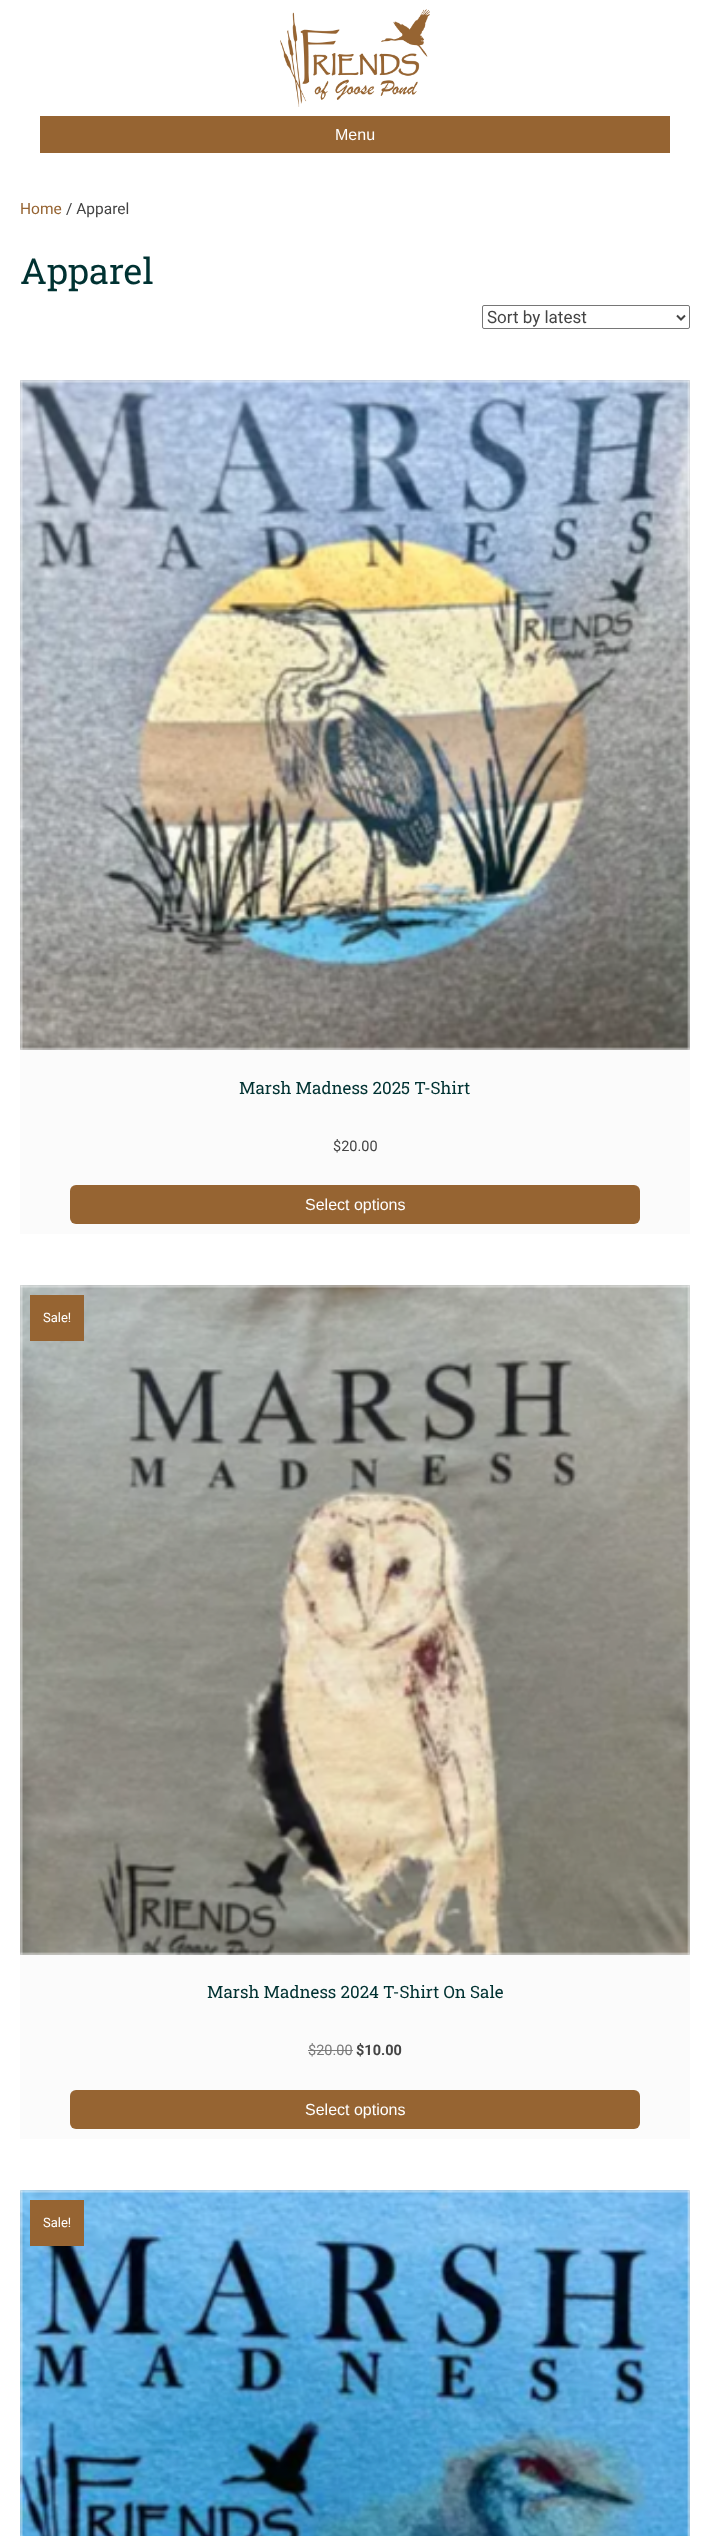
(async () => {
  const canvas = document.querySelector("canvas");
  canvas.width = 710;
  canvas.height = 2536;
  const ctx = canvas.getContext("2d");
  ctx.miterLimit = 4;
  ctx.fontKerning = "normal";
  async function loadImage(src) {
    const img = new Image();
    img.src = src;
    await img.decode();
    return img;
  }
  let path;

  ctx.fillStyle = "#ffffff";
  ctx.fillRect(0, 0, 710, 2536);
  ctx.drawImage(await loadImage("img/1.png"), 280, 9, 150, 98);
  ctx.fillStyle = "#966432";
  ctx.fillRect(40, 116, 630, 37);
  ctx.beginPath();
  ctx.roundRect(482.5, 305.5, 207, 23, 1.5);
  ctx.strokeStyle = "#767676";
  ctx.stroke();
  path = new Path2D("M677 315.5L681 319.5L685 315.5");
  ctx.strokeStyle = "#444444";
  ctx.lineWidth = 2;
  ctx.stroke(path);
  ctx.fillStyle = "#fbfbfb";
  ctx.fillRect(20, 381, 670, 853);
  ctx.strokeStyle = "#e6e6e6";
  ctx.lineWidth = 1;
  ctx.strokeRect(20.5, 380.5, 669, 669);
  ctx.drawImage(await loadImage("img/2.png"), 20, 380, 670, 670);
  ctx.fillStyle = "#966432";
  ctx.beginPath();
  ctx.roundRect(70, 1185, 570, 39, 6);
  ctx.fill();
  ctx.fillStyle = "#fbfbfb";
  ctx.fillRect(20, 1286, 670, 853);
  ctx.strokeRect(20.5, 1285.5, 669, 669);
  ctx.drawImage(await loadImage("img/3.png"), 20, 1285, 670, 670);
  ctx.fillStyle = "#966432";
  ctx.fillRect(30, 1295, 54, 46);
  ctx.fillStyle = "#7b7b7b";
  ctx.fillRect(308, 2050, 45, 1);
  ctx.fillStyle = "#966432";
  ctx.beginPath();
  ctx.roundRect(70, 2090, 570, 39, 6);
  ctx.fill();
  ctx.fillStyle = "#fbfbfb";
  ctx.beginPath();
  ctx.rect(20.5, 2190.5, 669, 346);
  ctx.fill();
  ctx.stroke();
  ctx.drawImage(await loadImage("img/4.png"), 20, 2190, 670, 346);
  ctx.fillStyle = "#966432";
  ctx.fillRect(30, 2200, 54, 46);
  ctx.font = "16px Liberation Sans";
  ctx.fillStyle = "#ffffff";
  ctx.fillText("Menu", 335, 140);
  ctx.font = "15.5px Roboto";
  ctx.fillStyle = "#966432";
  ctx.fillText("Home", 20, 214);
  ctx.fillStyle = "#444444";
  ctx.fillText("/ Apparel", 66, 214);
  ctx.font = "36px Roboto Slab";
  ctx.fillStyle = "#003232";
  ctx.fillText("Apparel", 20, 284);
  ctx.font = "17px Roboto";
  ctx.fillStyle = "#444444";
  ctx.fillText("Sort by latest", 487, 323);
  ctx.font = "17px Roboto Slab";
  ctx.fillStyle = "#003232";
  ctx.fillText("Marsh Madness 2025 T-Shirt", 239, 1094);
  ctx.font = "14.5px Roboto";
  ctx.fillStyle = "#444444";
  ctx.fillText("$20.00", 333, 1151);
  ctx.font = "16px Liberation Sans";
  ctx.fillStyle = "#ffffff";
  ctx.fillText("Select options", 305, 1210);
  ctx.font = "13px Roboto";
  ctx.fillText("Sale!", 43, 1322);
  ctx.font = "17px Roboto Slab";
  ctx.fillStyle = "#003232";
  ctx.fillText("Marsh Madness 2024 T-Shirt On Sale", 207, 1998);
  ctx.font = "14.5px Roboto";
  ctx.fillStyle = "#7b7b7b";
  ctx.fillText("$20.00", 308, 2055);
  ctx.font = "bold 14.5px Roboto";
  ctx.fillStyle = "#444444";
  ctx.fillText("$10.00", 356, 2055);
  ctx.font = "16px Liberation Sans";
  ctx.fillStyle = "#ffffff";
  ctx.fillText("Select options", 305, 2115);
  ctx.font = "13px Roboto";
  ctx.fillText("Sale!", 43, 2227);
})();
